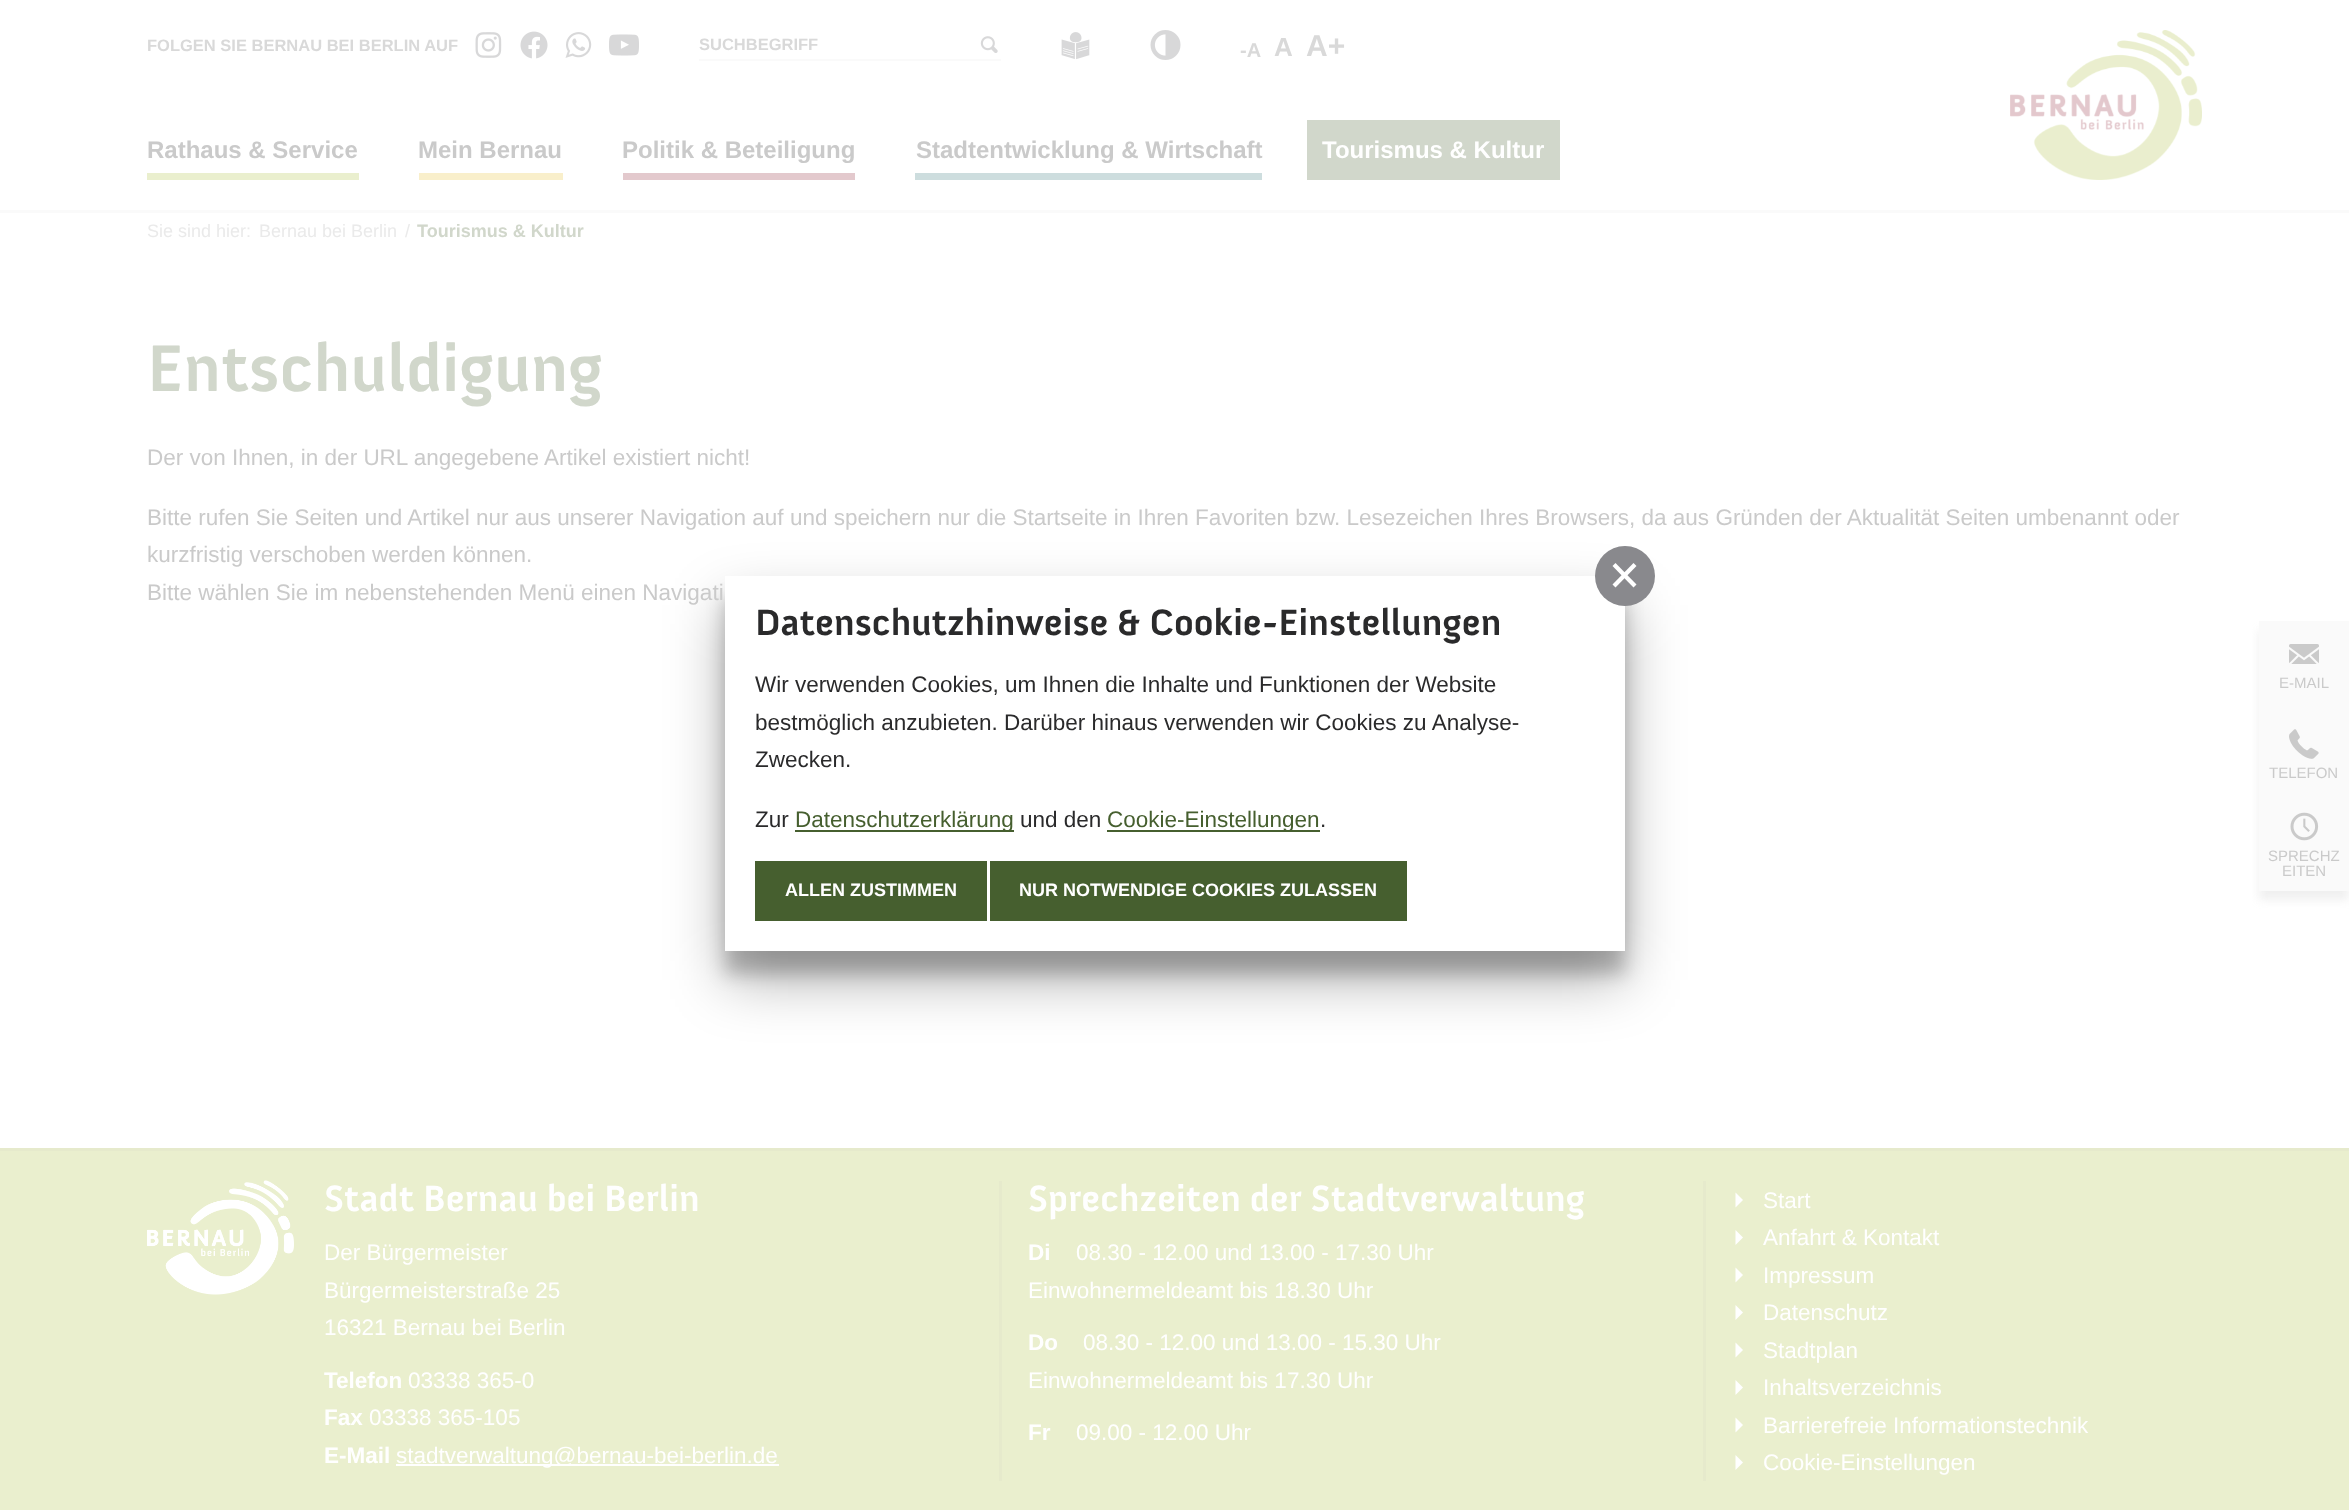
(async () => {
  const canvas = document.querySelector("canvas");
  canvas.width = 2349;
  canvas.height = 1510;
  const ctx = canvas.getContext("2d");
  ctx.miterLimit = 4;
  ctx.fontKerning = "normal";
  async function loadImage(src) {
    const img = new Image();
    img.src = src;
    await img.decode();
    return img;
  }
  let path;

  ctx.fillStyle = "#ffffff";
  ctx.fillRect(0, 0, 2349, 1510);
  ctx.drawImage(await loadImage("img/1.png"), 475, 32, 27, 26);
  ctx.drawImage(await loadImage("img/2.png"), 520, 31, 28, 28);
  ctx.drawImage(await loadImage("img/3.png"), 565, 32, 27, 26);
  ctx.drawImage(await loadImage("img/4.png"), 609, 34, 30, 22);
  ctx.fillStyle = "#fafafa";
  ctx.fillRect(699, 59, 302, 2);
  ctx.drawImage(await loadImage("img/5.png"), 980, 36, 18, 17);
  ctx.drawImage(await loadImage("img/6.png"), 1061, 32, 29, 28);
  ctx.drawImage(await loadImage("img/7.png"), 1150, 30, 31, 30);
  ctx.drawImage(await loadImage("img/8.png"), 2010, 30, 192, 150);
  for (const [x, y, w, h, color] of [
    [147, 173, 212, 7, "#eaefce"],
    [419, 173, 144, 7, "#f9efcb"],
    [623, 173, 232, 7, "#e3c9cd"],
    [915, 173, 347, 7, "#cdddde"],
    [1307, 120, 253, 60, "#d1d7cb"],
    [0, 210, 2349, 3, "#fafafa"],
  ]) {
    ctx.fillStyle = color;
    ctx.fillRect(x, y, w, h);
  }
  ctx.fillStyle = "rgba(191, 191, 191, 0.23)";
  ctx.filter = "blur(4.5px)";
  ctx.beginPath();
  ctx.rect(2259, 630, 90, 270);
  ctx.fill();
  ctx.filter = "none";
  ctx.fillStyle = "#fafafa";
  ctx.fillRect(2259, 621, 90, 270);
  ctx.drawImage(await loadImage("img/9.png"), 2289, 644, 30, 20);
  ctx.drawImage(await loadImage("img/10.png"), 2289, 729, 30, 30);
  ctx.drawImage(await loadImage("img/11.png"), 2290, 812, 29, 29);
  ctx.fillStyle = "#eaefce";
  ctx.fillRect(0, 1151, 2349, 359);
  ctx.fillStyle = "#e6eacc";
  ctx.fillRect(0, 1148, 2349, 3);
  ctx.drawImage(await loadImage("img/12.png"), 147, 1180, 147, 115);
  for (const [x, y, w, h, color] of [
    [396, 1464, 383, 2, "#ffffff"],
    [999, 1181, 3, 300, "#e6eacc"],
    [1703, 1181, 3, 300, "#e6eacc"],
  ]) {
    ctx.fillStyle = color;
    ctx.fillRect(x, y, w, h);
  }
  ctx.fillStyle = "#ffffff";
  path = new Path2D("M1735.5 1207.5V1192.5L1743 1200Z");
  ctx.fill(path);
  path = new Path2D("M1735.5 1245V1230L1743 1237.5Z");
  ctx.fill(path);
  path = new Path2D("M1735.5 1282.5V1267.5L1743 1275Z");
  ctx.fill(path);
  path = new Path2D("M1735.5 1320V1305L1743 1312.5Z");
  ctx.fill(path);
  path = new Path2D("M1735.5 1357.5V1342.5L1743 1350Z");
  ctx.fill(path);
  path = new Path2D("M1735.5 1395V1380L1743 1387.5Z");
  ctx.fill(path);
  path = new Path2D("M1735.5 1432.5V1417.5L1743 1425Z");
  ctx.fill(path);
  path = new Path2D("M1735.5 1470V1455L1743 1462.5Z");
  ctx.fill(path);
  ctx.fillStyle = "rgba(0, 0, 0, 0.22)";
  ctx.filter = "blur(9px)";
  ctx.beginPath();
  ctx.rect(725, 599, 900, 375);
  ctx.fill();
  ctx.filter = "none";
  ctx.fillStyle = "rgba(0, 0, 0, 0.3)";
  ctx.filter = "blur(28.5px)";
  ctx.beginPath();
  ctx.rect(725, 605, 900, 375);
  ctx.fill();
  ctx.filter = "none";
  ctx.fillStyle = "#ffffff";
  ctx.fillRect(725, 576, 900, 375);
  ctx.fillStyle = "#89898d";
  ctx.beginPath();
  ctx.arc(1625, 576, 30, 0, Math.PI * 2);
  ctx.fill();
  ctx.fillStyle = "#ffffff";
  path = new Path2D("M1615.5 563L1636.5 584.5L1633.5 587.5L1612.5 566Z");
  ctx.fill(path);
  path = new Path2D("M1612.5 584.5L1633.5 563L1636.5 566L1615.5 587.5Z");
  ctx.fill(path);
  for (const [x, y, w, h, color] of [
    [795, 830, 219, 2, "#465f2f"],
    [1107, 830, 213, 2, "#465f2f"],
    [755, 861, 232, 60, "#465f2f"],
    [990, 861, 417, 60, "#465f2f"],
  ]) {
    ctx.fillStyle = color;
    ctx.fillRect(x, y, w, h);
  }
  ctx.font = "bold 16.5px Liberation Sans";
  ctx.fillStyle = "#d9d9d9";
  ctx.fillText("FOLGEN SIE BERNAU BEI BERLIN AUF", 147, 51);
  ctx.fillText("SUCHBEGRIFF", 699, 50);
  ctx.font = "bold 20px Liberation Sans";
  ctx.fillText("-A", 1240, 57);
  ctx.font = "bold 26px Liberation Sans";
  ctx.fillText("A", 1274, 56);
  ctx.font = "bold 30px Liberation Sans";
  ctx.fillText("A+", 1306, 56);
  ctx.font = "bold 24px Liberation Sans";
  ctx.fillStyle = "#cacaca";
  for (const [text, x, y] of [
    ["Rathaus & Service", 147, 158],
    ["Mein Bernau", 418, 158],
    ["Politik & Beteiligung", 622, 158],
    ["Stadtentwicklung & Wirtschaft", 916, 158],
  ]) {
    ctx.fillText(text, x, y);
  }
  ctx.fillStyle = "#ffffff";
  ctx.fillText("Tourismus & Kultur", 1322, 158);
  ctx.font = "18px Liberation Sans";
  ctx.fillStyle = "#eaeaea";
  for (const [text, x, y] of [
    ["Sie sind hier:", 147, 237],
    ["Bernau bei Berlin", 259, 237],
    ["/", 405, 237],
  ]) {
    ctx.fillText(text, x, y);
  }
  ctx.font = "bold 18px Liberation Sans";
  ctx.fillStyle = "#d1d7cb";
  ctx.fillText("Tourismus & Kultur", 417, 237);
  ctx.font = "bold 67.5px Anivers";
  ctx.fillText("Entschuldigung", 147, 391);
  ctx.font = "22.5px Liberation Sans";
  ctx.fillStyle = "#cacaca";
  for (const [text, x, y] of [
    ["Der von Ihnen, in der URL angegebene Artikel existiert nicht!", 147, 465],
    ["Bitte rufen Sie Seiten und Artikel nur aus unserer Navigation auf und speichern nur die Startseite in Ihren Favoriten bzw. Lesezeichen Ihres Browsers, da aus Gründen der Aktualität Seiten umbenannt oder", 147, 525],
    ["kurzfristig verschoben werden können.", 147, 562],
    ["Bitte wählen Sie im nebenstehenden Menü einen Navigati", 147, 600],
  ]) {
    ctx.fillText(text, x, y);
  }
  ctx.font = "15px Liberation Sans";
  for (const [text, x, y] of [
    ["E-MAIL", 2279, 688],
    ["TELEFON", 2269, 778],
    ["SPRECHZ", 2268, 861],
    ["EITEN", 2282, 876],
  ]) {
    ctx.fillText(text, x, y);
  }
  ctx.font = "bold 37.5px Anivers";
  ctx.fillStyle = "#ffffff";
  ctx.fillText("Stadt Bernau bei Berlin", 324, 1211);
  ctx.font = "22.5px Liberation Sans";
  for (const [text, x, y] of [
    ["Der Bürgermeister", 324, 1260],
    ["Bürgermeisterstraße 25", 324, 1298],
    ["16321 Bernau bei Berlin", 324, 1335],
  ]) {
    ctx.fillText(text, x, y);
  }
  ctx.font = "bold 22.5px Liberation Sans";
  ctx.fillText("Telefon", 324, 1388);
  ctx.font = "22.5px Liberation Sans";
  ctx.fillText("03338 365-0", 408, 1388);
  ctx.font = "bold 22.5px Liberation Sans";
  ctx.fillText("Fax", 324, 1425);
  ctx.font = "22.5px Liberation Sans";
  ctx.fillText("03338 365-105", 369, 1425);
  ctx.font = "bold 22.5px Liberation Sans";
  ctx.fillText("E-Mail", 324, 1463);
  ctx.font = "22.5px Liberation Sans";
  ctx.fillText("stadtverwaltung@bernau-bei-berlin.de", 396, 1463);
  ctx.font = "bold 37.5px Anivers";
  ctx.fillText("Sprechzeiten der Stadtverwaltung", 1028, 1211);
  ctx.font = "bold 22.5px Liberation Sans";
  ctx.fillText("Di", 1028, 1260);
  ctx.font = "22.5px Liberation Sans";
  ctx.fillText("08.30 - 12.00 und 13.00 - 17.30 Uhr", 1076, 1260);
  ctx.fillText("Einwohnermeldeamt bis 18.30 Uhr", 1028, 1298);
  ctx.font = "bold 22.5px Liberation Sans";
  ctx.fillText("Do", 1028, 1350);
  ctx.font = "22.5px Liberation Sans";
  ctx.fillText("08.30 - 12.00 und 13.00 - 15.30 Uhr", 1083, 1350);
  ctx.fillText("Einwohnermeldeamt bis 17.30 Uhr", 1028, 1388);
  ctx.font = "bold 22.5px Liberation Sans";
  ctx.fillText("Fr", 1028, 1440);
  ctx.font = "22.5px Liberation Sans";
  for (const [text, x, y] of [
    ["09.00 - 12.00 Uhr", 1076, 1440],
    ["Start", 1763, 1208],
    ["Anfahrt & Kontakt", 1763, 1245],
    ["Impressum", 1763, 1283],
    ["Datenschutz", 1763, 1320],
    ["Stadtplan", 1763, 1358],
    ["Inhaltsverzeichnis", 1763, 1395],
    ["Barrierefreie Informationstechnik", 1763, 1433],
    ["Cookie-Einstellungen", 1763, 1470],
  ]) {
    ctx.fillText(text, x, y);
  }
  ctx.font = "bold 37.5px Anivers";
  ctx.fillStyle = "#2a2a2b";
  ctx.fillText("Datenschutzhinweise & Cookie-Einstellungen", 755, 635);
  ctx.font = "22.5px Liberation Sans";
  for (const [text, x, y] of [
    ["Wir verwenden Cookies, um Ihnen die Inhalte und Funktionen der Website", 755, 692],
    ["bestmöglich anzubieten. Darüber hinaus verwenden wir Cookies zu Analyse-", 755, 730],
    ["Zwecken.", 755, 767],
    ["Zur", 755, 827],
  ]) {
    ctx.fillText(text, x, y);
  }
  ctx.fillStyle = "#465f2f";
  ctx.fillText("Datenschutzerklärung", 795, 827);
  ctx.fillStyle = "#2a2a2b";
  ctx.fillText("und den", 1020, 827);
  ctx.fillStyle = "#465f2f";
  ctx.fillText("Cookie-Einstellungen", 1107, 827);
  ctx.fillStyle = "#2a2a2b";
  ctx.fillText(".", 1320, 827);
  ctx.font = "bold 18px Liberation Sans";
  ctx.fillStyle = "#ffffff";
  ctx.fillText("ALLEN ZUSTIMMEN", 785, 896);
  ctx.fillText("NUR NOTWENDIGE COOKIES ZULASSEN", 1019, 896);
})();
